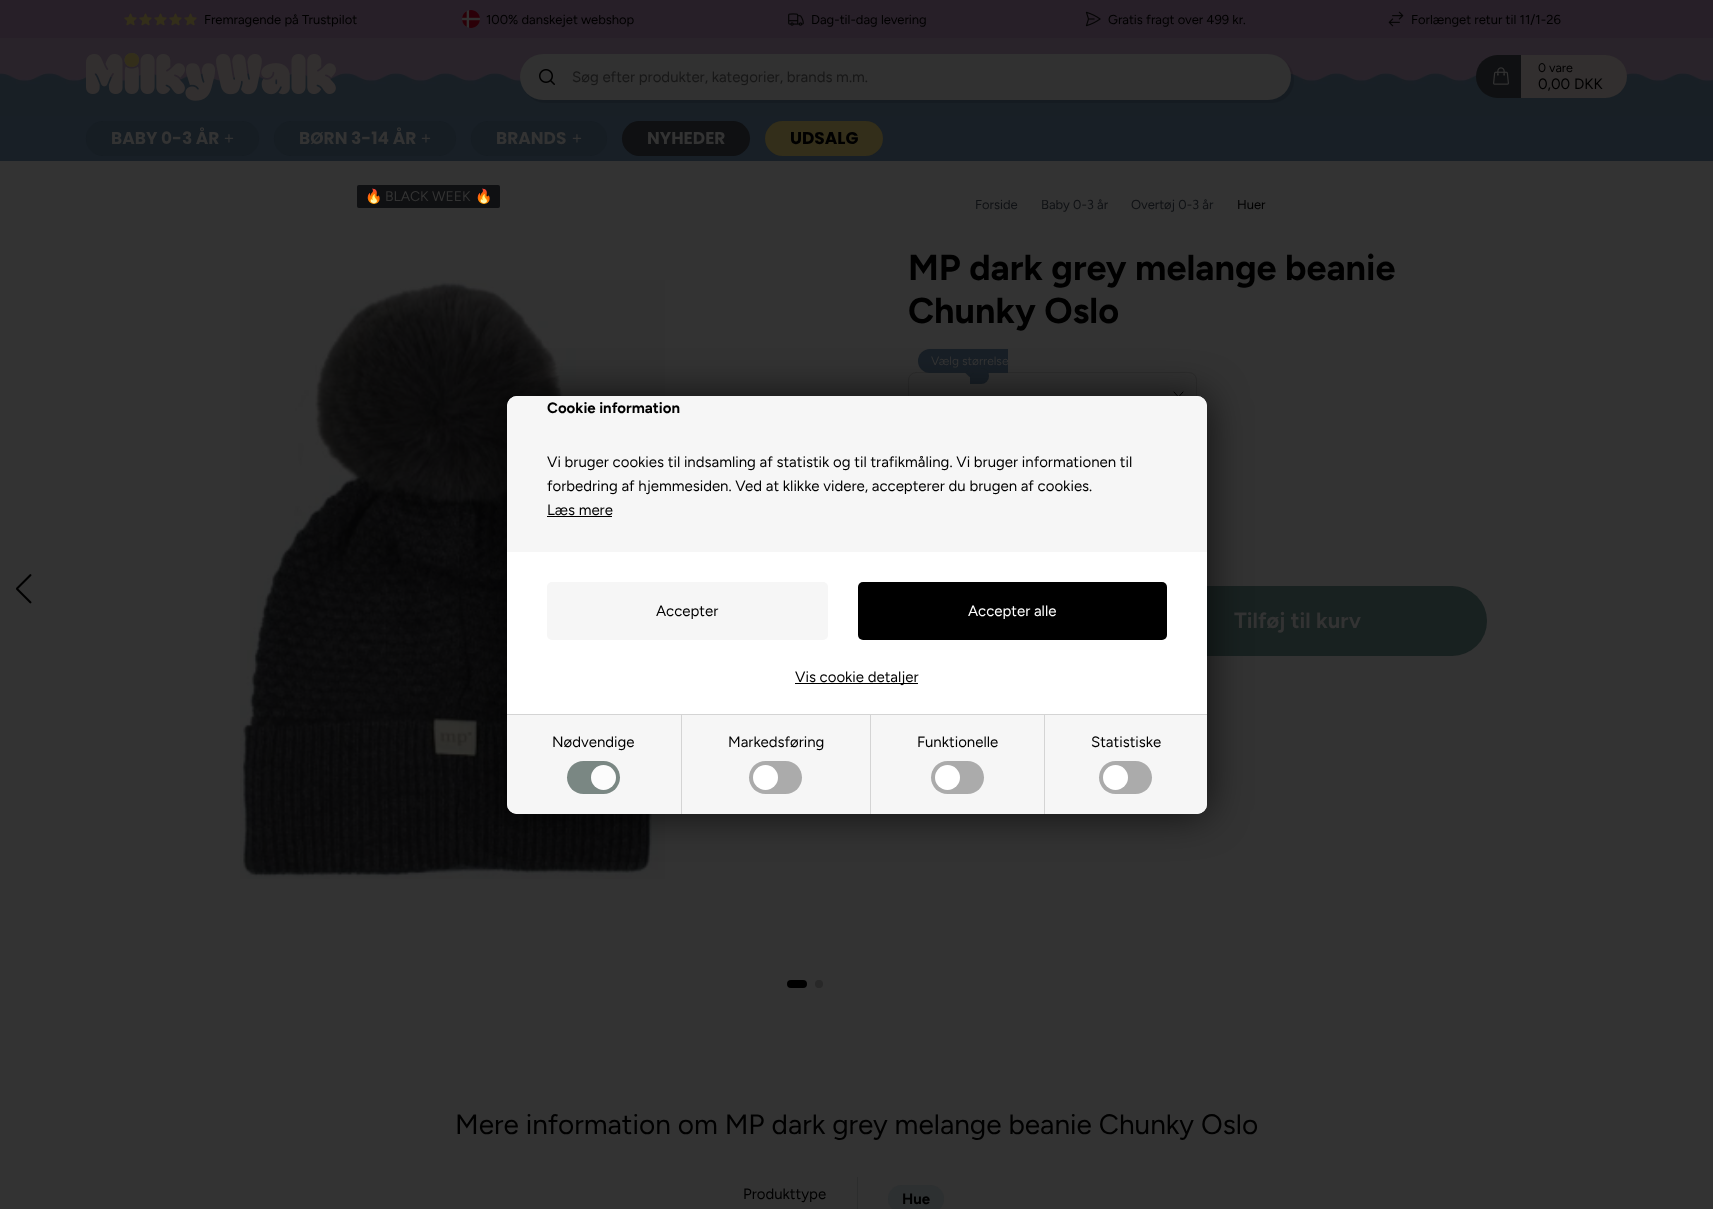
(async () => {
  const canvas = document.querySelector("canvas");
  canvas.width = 1713;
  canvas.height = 1209;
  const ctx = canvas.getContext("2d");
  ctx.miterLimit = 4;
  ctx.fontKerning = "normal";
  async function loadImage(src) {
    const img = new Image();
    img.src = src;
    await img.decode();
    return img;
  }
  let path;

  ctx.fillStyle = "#333333";
  ctx.fillRect(0, 0, 1713, 1209);
  ctx.fillStyle = "#271f28";
  ctx.fillRect(0, 0, 1713, 38);
  ctx.drawImage(await loadImage("img/1.png"), 124, 13, 13, 13);
  ctx.drawImage(await loadImage("img/1.png"), 139, 13, 13, 13);
  ctx.drawImage(await loadImage("img/1.png"), 154, 13, 13, 13);
  ctx.drawImage(await loadImage("img/1.png"), 169, 13, 13, 13);
  ctx.drawImage(await loadImage("img/1.png"), 184, 13, 13, 13);
  ctx.drawImage(await loadImage("img/2.png"), 462, 10, 18, 18);
  ctx.drawImage(await loadImage("img/3.png"), 788, 13, 16, 13);
  ctx.drawImage(await loadImage("img/4.png"), 1085, 11, 16, 16);
  ctx.drawImage(await loadImage("img/5.png"), 1388, 11, 16, 16);
  ctx.drawImage(await loadImage("img/6.png"), 0, 38, 1713, 78);
  ctx.drawImage(await loadImage("img/7.png"), 86, 53, 250, 48);
  ctx.fillStyle = "rgba(0, 0, 0, 0.1)";
  path = new Path2D("M528 95C533 100 539 103 546 103H1271C1284 103 1294 93 1294 80C1294 73 1291 67 1286 62C1289 66 1291 71 1291 77C1291 90 1281 100 1268 100H543C537 100 532 98 528 95Z");
  ctx.fill(path);
  ctx.fillStyle = "#313131";
  ctx.beginPath();
  ctx.roundRect(520, 54, 771, 46, 23);
  ctx.fill();
  ctx.drawImage(await loadImage("img/8.png"), 539, 69, 16, 16);
  ctx.fillStyle = "#0f1012";
  ctx.beginPath();
  ctx.roundRect(1476, 55, 45, 43, [21.5, 0, 0, 21.5]);
  ctx.fill();
  ctx.drawImage(await loadImage("img/9.png"), 1493, 67, 16, 18);
  ctx.fillStyle = "#322f2f";
  ctx.beginPath();
  ctx.roundRect(1521, 55, 106, 43, [0, 21.5, 21.5, 0]);
  ctx.fill();
  ctx.fillStyle = "#181f26";
  ctx.fillRect(0, 116, 1713, 45);
  ctx.fillStyle = "#161d23";
  ctx.beginPath();
  ctx.roundRect(86, 121, 173, 35, 17.5);
  ctx.fill();
  ctx.beginPath();
  ctx.roundRect(274, 121, 182, 35, 17.5);
  ctx.fill();
  ctx.beginPath();
  ctx.roundRect(471, 121, 136, 35, 17.5);
  ctx.fill();
  ctx.fillStyle = "#0f1012";
  ctx.beginPath();
  ctx.roundRect(622, 121, 128, 35, 17.5);
  ctx.fill();
  ctx.fillStyle = "#332e1a";
  ctx.beginPath();
  ctx.roundRect(765, 121, 118, 35, 17.5);
  ctx.fill();
  ctx.fillStyle = "#0f1012";
  ctx.beginPath();
  ctx.roundRect(357, 185, 143, 23, 2);
  ctx.fill();
  ctx.drawImage(await loadImage("img/10.png"), 16, 574, 16, 30);
  ctx.drawImage(await loadImage("img/11.png"), 240, 280, 425, 599);
  ctx.fillStyle = "#000000";
  ctx.beginPath();
  ctx.roundRect(787, 980, 20, 8, 4);
  ctx.fill();
  ctx.fillStyle = "#282828";
  ctx.beginPath();
  ctx.arc(819, 984, 4, 0, Math.PI * 2);
  ctx.fill();
  path = new Path2D("M1183 392L1178.5 397L1174 392");
  ctx.strokeStyle = "#000000";
  ctx.lineWidth = 0.9;
  ctx.lineCap = "round";
  ctx.lineJoin = "round";
  ctx.stroke(path);
  ctx.beginPath();
  ctx.roundRect(908.5, 372.5, 288, 44, 7.5);
  ctx.strokeStyle = "#2d2d2d";
  ctx.lineWidth = 1;
  ctx.lineJoin = "miter";
  ctx.stroke();
  ctx.fillStyle = "#181f26";
  ctx.beginPath();
  ctx.roundRect(918, 349, 90, 24, [12, 0, 0, 12]);
  ctx.fill();
  ctx.beginPath();
  ctx.roundRect(970, 368, 19, 16, [0, 8, 8, 0]);
  ctx.fill();
  path = new Path2D("M969.5 368.5L974 373L969.5 377L965.5 373Z");
  ctx.fill(path);
  ctx.fillStyle = "#182120";
  ctx.beginPath();
  ctx.roundRect(1108, 586, 379, 70, 35);
  ctx.fill();
  ctx.fillStyle = "#2c2d2d";
  ctx.fillRect(857, 1177, 1, 32);
  ctx.fillStyle = "#2d3031";
  ctx.beginPath();
  ctx.roundRect(888, 1185, 56, 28, 14);
  ctx.fill();
  ctx.fillStyle = "rgba(0, 0, 0, 0.7)";
  ctx.filter = "blur(20px)";
  ctx.beginPath();
  ctx.roundRect(507, 396, 700, 418, 10);
  ctx.fill();
  ctx.filter = "none";
  ctx.fillStyle = "#ffffff";
  ctx.beginPath();
  ctx.roundRect(507, 396, 700, 418, 10);
  ctx.fill();
  ctx.fillStyle = "#f6f6f6";
  ctx.beginPath();
  ctx.roundRect(507, 396, 700, 54, [10, 10, 0, 0]);
  ctx.fill();
  ctx.fillRect(507, 450, 700, 102);
  ctx.fillStyle = "#000000";
  ctx.fillRect(547, 516, 65, 1);
  ctx.fillStyle = "#f6f6f6";
  ctx.beginPath();
  ctx.roundRect(547, 582, 281, 58, 5);
  ctx.fill();
  ctx.fillStyle = "#000000";
  ctx.beginPath();
  ctx.roundRect(858, 582, 309, 58, 5);
  ctx.fill();
  ctx.fillRect(795, 683, 123, 1);
  ctx.fillStyle = "#f6f6f6";
  ctx.beginPath();
  ctx.roundRect(507, 714, 700, 100, [0, 0, 10, 10]);
  ctx.fill();
  ctx.fillStyle = "#d4d4d4";
  ctx.fillRect(507, 714, 700, 1);
  ctx.fillRect(681, 715, 1, 99);
  ctx.fillStyle = "#7a8783";
  ctx.beginPath();
  ctx.roundRect(567, 761, 53, 33, 16.5);
  ctx.fill();
  ctx.fillStyle = "#fcfcfc";
  ctx.beginPath();
  ctx.arc(603.5, 777.5, 12.5, 0, Math.PI * 2);
  ctx.fill();
  ctx.fillStyle = "#d4d4d4";
  ctx.fillRect(870, 715, 1, 99);
  ctx.fillStyle = "#ababab";
  ctx.beginPath();
  ctx.roundRect(749, 761, 53, 33, 16.5);
  ctx.fill();
  ctx.fillStyle = "#ffffff";
  ctx.beginPath();
  ctx.arc(765.5, 777.5, 12.5, 0, Math.PI * 2);
  ctx.fill();
  ctx.fillStyle = "#d4d4d4";
  ctx.fillRect(1044, 715, 1, 99);
  ctx.fillStyle = "#ababab";
  ctx.beginPath();
  ctx.roundRect(931, 761, 53, 33, 16.5);
  ctx.fill();
  ctx.fillStyle = "#ffffff";
  ctx.beginPath();
  ctx.arc(947.5, 777.5, 12.5, 0, Math.PI * 2);
  ctx.fill();
  ctx.fillStyle = "#ababab";
  ctx.beginPath();
  ctx.roundRect(1099, 761, 53, 33, 16.5);
  ctx.fill();
  ctx.fillStyle = "#ffffff";
  ctx.beginPath();
  ctx.arc(1115.5, 777.5, 12.5, 0, Math.PI * 2);
  ctx.fill();
  ctx.font = "300 13px Figtree";
  ctx.fillStyle = "#000000";
  for (const [text, x, y] of [
    ["Fremragende på Trustpilot", 204, 24],
    ["100% danskejet webshop", 486, 24],
    ["Dag-til-dag levering", 811, 24],
    ["Gratis fragt over 499 kr.", 1108, 24],
    ["Forlænget retur til 11/1-26", 1411, 24],
  ]) {
    ctx.fillText(text, x, y);
  }
  ctx.font = "300 15px Figtree";
  ctx.fillStyle = "#171717";
  ctx.fillText("Søg efter produkter, kategorier, brands m.m.", 572, 82);
  ctx.font = "300 12.5px Figtree";
  ctx.fillStyle = "#000000";
  ctx.fillText("0 vare", 1538, 72);
  ctx.font = "300 15px Figtree";
  ctx.fillText("0,00 DKK", 1538, 89);
  ctx.font = "bold 17px Poppins";
  ctx.fillStyle = "#333333";
  ctx.fillText("BABY 0-3 ÅR", 111, 144);
  ctx.font = "17px Liberation Sans";
  ctx.fillText("+", 224, 144);
  ctx.font = "bold 17px Poppins";
  ctx.fillText("BØRN 3-14 ÅR", 299, 144);
  ctx.font = "17px Liberation Sans";
  ctx.fillText("+", 421, 144);
  ctx.font = "bold 17px Poppins";
  ctx.fillText("BRANDS", 496, 144);
  ctx.font = "17px Liberation Sans";
  ctx.fillText("+", 572, 144);
  ctx.font = "bold 17px Poppins";
  ctx.fillText("NYHEDER", 647, 144);
  ctx.fillStyle = "#000000";
  ctx.fillText("UDSALG", 790, 144);
  ctx.font = "14px Noto Color Emoji";
  ctx.fillStyle = "#333333";
  ctx.fillText("🔥", 365, 201);
  ctx.font = "300 14px Figtree";
  ctx.fillText("BLACK WEEK", 385, 201);
  ctx.font = "14px Noto Color Emoji";
  ctx.fillText("🔥", 475, 201);
  ctx.font = "300 13px Figtree";
  ctx.fillStyle = "#0f1114";
  for (const [text, x, y] of [
    ["Forside", 975, 209],
    ["Baby 0-3 år", 1041, 209],
    ["Overtøj 0-3 år", 1131, 209],
  ]) {
    ctx.fillText(text, x, y);
  }
  ctx.fillStyle = "#000000";
  ctx.fillText("Huer", 1237, 209);
  ctx.font = "300 36px 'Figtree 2'";
  ctx.fillText("MP dark grey melange beanie", 908, 280);
  ctx.fillText("Chunky Oslo", 908, 323);
  ctx.font = "300 12px Figtree";
  ctx.fillStyle = "#333333";
  ctx.fillText("Vælg størrelse", 931, 365);
  ctx.font = "300 22px 'Figtree 2'";
  ctx.fillText("Tilføj til kurv", 1234, 628);
  ctx.font = "300 28px Figtree";
  ctx.fillStyle = "#000000";
  ctx.fillText("Mere information om MP dark grey melange beanie Chunky Oslo", 455, 1134);
  ctx.font = "300 15px Figtree";
  ctx.fillText("Produkttype", 743, 1199);
  ctx.font = "300 15px 'Figtree 2'";
  ctx.fillText("Hue", 902, 1204);
  ctx.fillText("Cookie information", 547, 413);
  ctx.font = "300 15px Figtree";
  for (const [text, x, y] of [
    ["Vi bruger cookies til indsamling af statistik og til trafikmåling. Vi bruger informationen til", 547, 467],
    ["forbedring af hjemmesiden. Ved at klikke videre, accepterer du brugen af cookies.", 547, 491],
    ["Læs mere", 547, 515],
    ["Accepter", 656, 616],
  ]) {
    ctx.fillText(text, x, y);
  }
  ctx.fillStyle = "#ffffff";
  ctx.fillText("Accepter alle", 968, 616);
  ctx.fillStyle = "#000000";
  for (const [text, x, y] of [
    ["Vis cookie detaljer", 795, 682],
    ["Nødvendige", 552, 747],
    ["Markedsføring", 728, 747],
    ["Funktionelle", 917, 747],
    ["Statistiske", 1091, 747],
  ]) {
    ctx.fillText(text, x, y);
  }
})();
